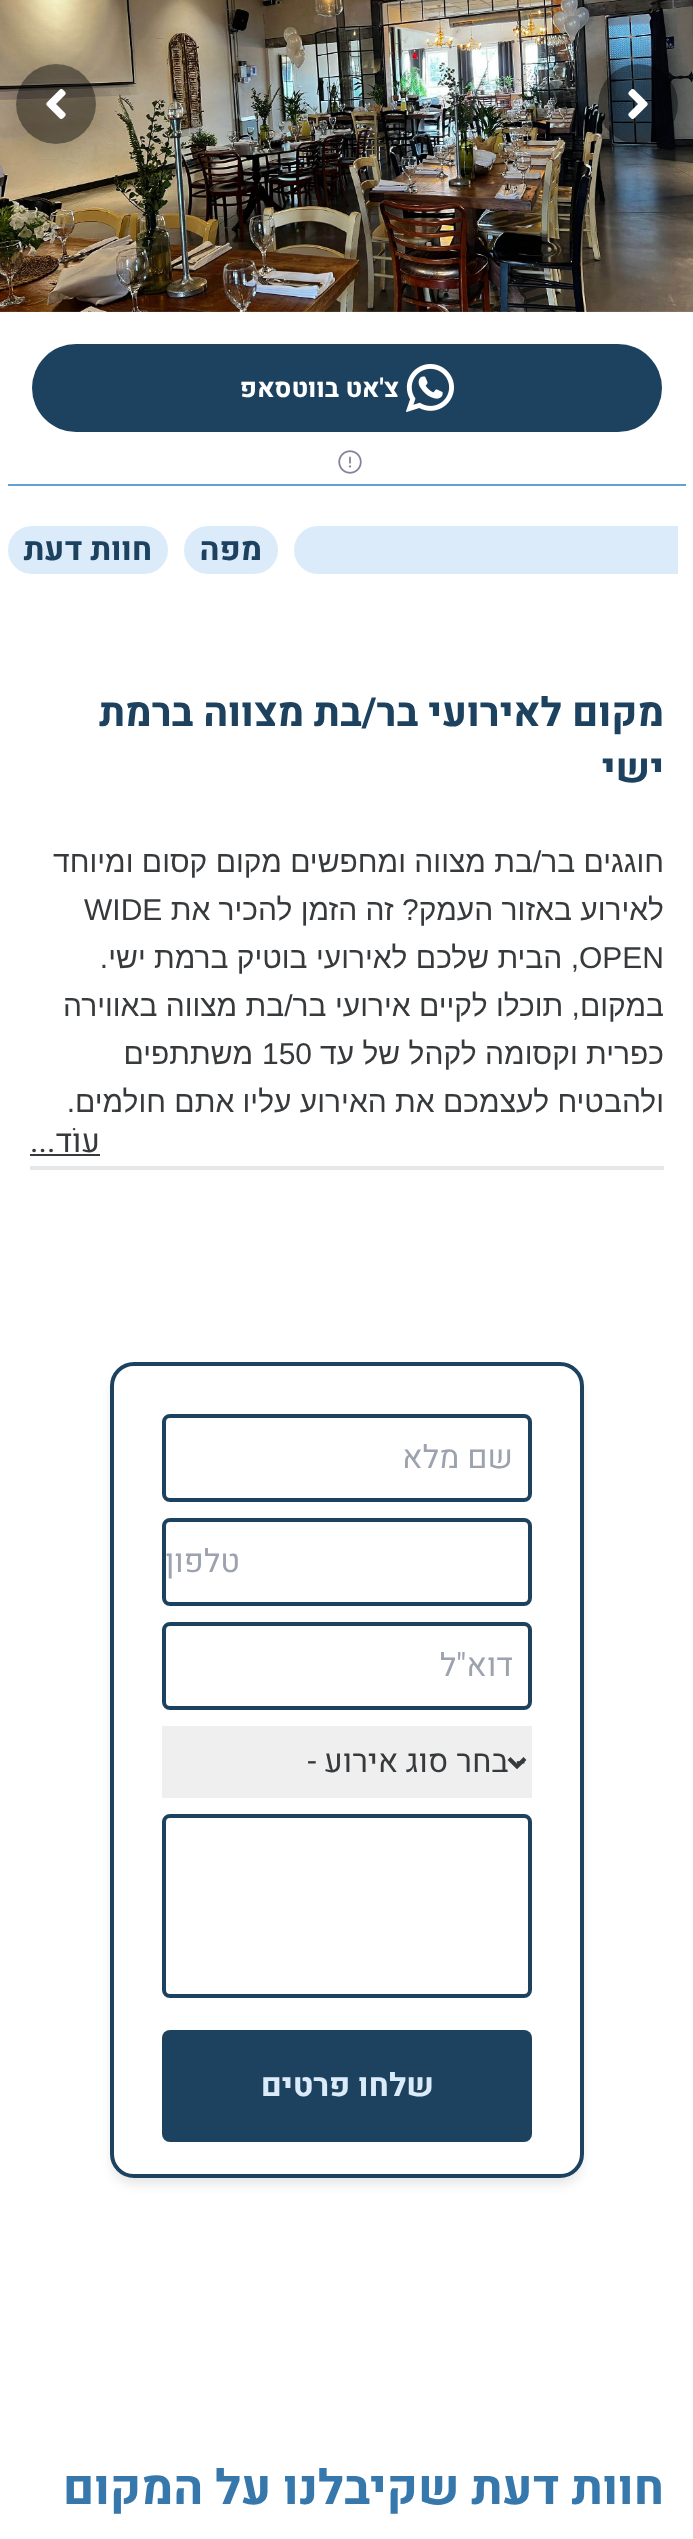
(async () => {
  const canvas = document.querySelector("canvas");
  canvas.width = 693;
  canvas.height = 2539;
  const ctx = canvas.getContext("2d");
  ctx.miterLimit = 4;
  ctx.fontKerning = "normal";
  async function loadImage(src) {
    const img = new Image();
    img.src = src;
    await img.decode();
    return img;
  }
  let path;

  ctx.fillStyle = "#ffffff";
  ctx.fillRect(0, 0, 693, 2539);
  ctx.drawImage(await loadImage("img/1.png"), 0, 0, 693, 312);
  ctx.save();
  path = new Path2D("M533 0H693V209H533ZM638 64C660 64 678 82 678 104C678 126 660 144 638 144C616 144 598 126 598 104C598 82 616 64 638 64Z");
  ctx.clip(path, "evenodd");
  ctx.fillStyle = "rgba(0, 0, 0, 0.3)";
  ctx.filter = "blur(20px)";
  ctx.beginPath();
  ctx.roundRect(594, 60, 88, 88, 44);
  ctx.fill();
  ctx.filter = "none";
  ctx.restore();
  ctx.fillStyle = "rgba(0, 0, 0, 0.5)";
  ctx.beginPath();
  ctx.arc(638, 104, 40, 0, Math.PI * 2);
  ctx.fill();
  ctx.drawImage(await loadImage("img/2.png"), 628, 89, 20, 30);
  ctx.save();
  path = new Path2D("M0 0H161V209H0ZM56 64C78 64 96 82 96 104C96 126 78 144 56 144C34 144 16 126 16 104C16 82 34 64 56 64Z");
  ctx.clip(path, "evenodd");
  ctx.fillStyle = "rgba(0, 0, 0, 0.3)";
  ctx.filter = "blur(20px)";
  ctx.beginPath();
  ctx.roundRect(12, 60, 88, 88, 44);
  ctx.fill();
  ctx.filter = "none";
  ctx.restore();
  ctx.beginPath();
  ctx.arc(56, 104, 40, 0, Math.PI * 2);
  ctx.fill();
  ctx.drawImage(await loadImage("img/3.png"), 46, 89, 20, 30);
  ctx.fillStyle = "#1d425f";
  ctx.beginPath();
  ctx.roundRect(32, 344, 630, 88, 44);
  ctx.fill();
  ctx.drawImage(await loadImage("img/4.png"), 406, 364, 48, 48);
  ctx.drawImage(await loadImage("img/5.png"), 338, 450, 24, 24);
  ctx.fillStyle = "#61a2d6";
  ctx.fillRect(8, 484, 678, 2);
  ctx.fillStyle = "#dbebf9";
  ctx.beginPath();
  ctx.roundRect(294, 526, 384, 48, [24, 0, 0, 24]);
  ctx.fill();
  ctx.beginPath();
  ctx.roundRect(184, 526, 94, 48, 24);
  ctx.fill();
  ctx.beginPath();
  ctx.roundRect(8, 526, 160, 48, 24);
  ctx.fill();
  ctx.fillStyle = "#e5e7eb";
  ctx.fillRect(30, 1166, 634, 4);
  ctx.fillStyle = "#373a3c";
  ctx.fillRect(30, 1154, 70, 2);
  ctx.save();
  path = new Path2D("M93 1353H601V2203H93ZM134 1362H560C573.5 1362 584 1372.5 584 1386V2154C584 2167.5 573.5 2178 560 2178H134C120.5 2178 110 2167.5 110 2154V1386C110 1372.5 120.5 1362 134 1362Z");
  ctx.clip(path, "evenodd");
  ctx.fillStyle = "rgba(0, 0, 0, 0.1)";
  ctx.filter = "blur(6px)";
  ctx.beginPath();
  ctx.roundRect(112, 1372, 470, 812, 22);
  ctx.fill();
  ctx.filter = "none";
  ctx.restore();
  ctx.beginPath();
  ctx.roundRect(112, 1364, 470, 812, 22);
  ctx.strokeStyle = "#1d425f";
  ctx.lineWidth = 4;
  ctx.stroke();
  ctx.beginPath();
  ctx.roundRect(164, 1416, 366, 84, 6);
  ctx.stroke();
  ctx.beginPath();
  ctx.roundRect(164, 1520, 366, 84, 6);
  ctx.stroke();
  ctx.beginPath();
  ctx.roundRect(164, 1624, 366, 84, 6);
  ctx.stroke();
  ctx.fillStyle = "#efefef";
  ctx.fillRect(162, 1726, 370, 72);
  path = new Path2D("M509 1758.5L517 1766.5L525 1758.5");
  ctx.strokeStyle = "#373a3c";
  ctx.stroke(path);
  ctx.beginPath();
  ctx.roundRect(164, 1816, 366, 180, 6);
  ctx.strokeStyle = "#1d425f";
  ctx.stroke();
  ctx.fillStyle = "#1d425f";
  ctx.beginPath();
  ctx.roundRect(162, 2030, 370, 112, 8);
  ctx.fill();
  ctx.direction = "rtl";
  ctx.font = "bold 26px Heebo";
  ctx.fillStyle = "#ffffff";
  ctx.fillText("צ'אט בווטסאפ", 399, 397);
  ctx.font = "bold 32px Heebo";
  ctx.fillStyle = "#1d425f";
  ctx.fillText("מפה", 262, 560);
  ctx.fillText("חוות דעת", 152, 560);
  ctx.font = "bold 40px Heebo";
  ctx.fillText("מקום לאירועי בר/בת מצווה ברמת", 664, 726);
  ctx.fillText("ישי", 664, 782);
  ctx.font = "30px Liberation Sans";
  ctx.fillStyle = "#373a3c";
  ctx.fillText("חוגגים בר/בת מצווה ומחפשים מקום קסום ומיוחד", 664, 872);
  ctx.fillText("לאירוע באזור העמק? זה הזמן להכיר את", 664, 920);
  ctx.direction = "ltr";
  ctx.fillText("WIDE", 84, 920);
  ctx.fillText("OPEN", 579, 968);
  ctx.direction = "rtl";
  for (const [text, x, y] of [
    [", הבית שלכם לאירועי בוטיק ברמת ישי.", 579, 968],
    ["במקום, תוכלו לקיים אירועי בר/בת מצווה באווירה", 664, 1016],
    ["כפרית וקסומה לקהל של עד", 664, 1064],
  ]) {
    ctx.fillText(text, x, y);
  }
  ctx.direction = "ltr";
  ctx.fillText("150", 262, 1064);
  ctx.direction = "rtl";
  ctx.fillText("משתתפים", 253, 1064);
  ctx.fillText("ולהבטיח לעצמכם את האירוע עליו אתם חולמים.", 664, 1112);
  ctx.font = "32px Heebo";
  ctx.fillText("עוֹד...", 100, 1152);
  ctx.fillStyle = "#9ca3af";
  for (const [text, x, y] of [
    ["שם מלא", 513, 1468],
    ["טלפון", 240, 1572],
    ["דוא\"ל", 513, 1676],
  ]) {
    ctx.fillText(text, x, y);
  }
  ctx.fillStyle = "#373a3c";
  ctx.fillText("- בחר סוג אירוע -", 525, 1772);
  ctx.font = "bold 32px Heebo";
  ctx.fillStyle = "#dbebf9";
  ctx.fillText("שלחו פרטים", 434, 2096);
  ctx.font = "bold 48px Heebo";
  ctx.fillStyle = "#3677ac";
  ctx.fillText("חוות דעת שקיבלנו על המקום", 664, 2504);
})();
